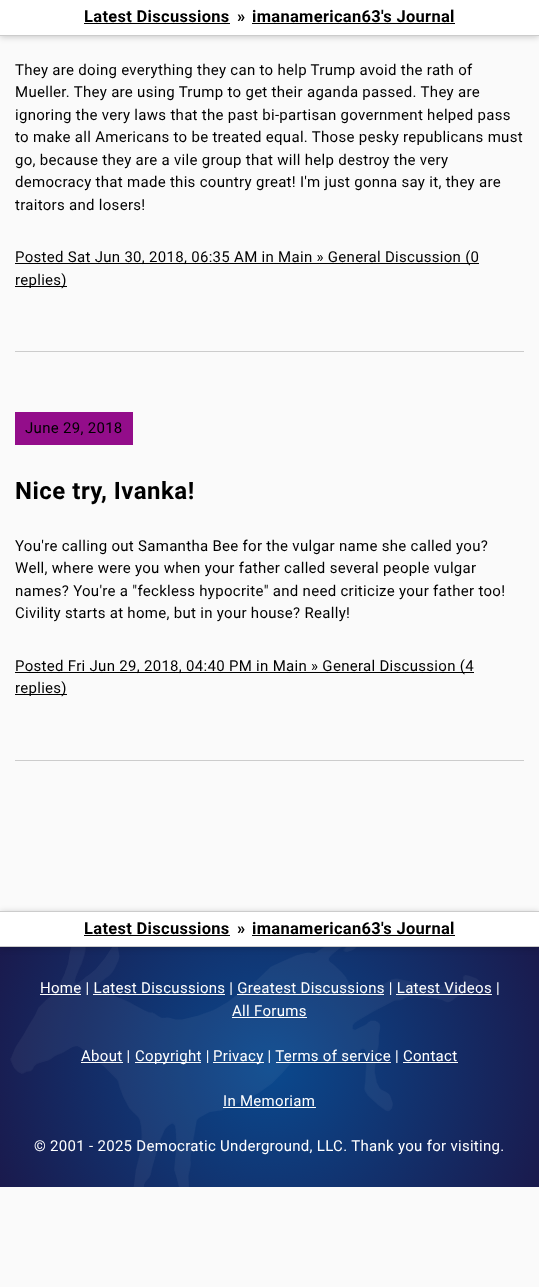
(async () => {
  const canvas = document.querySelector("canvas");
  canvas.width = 539;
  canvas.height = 1287;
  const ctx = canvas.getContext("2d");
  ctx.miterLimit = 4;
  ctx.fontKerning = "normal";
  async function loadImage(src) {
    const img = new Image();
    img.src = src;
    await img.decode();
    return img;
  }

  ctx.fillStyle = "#fafafa";
  ctx.fillRect(0, 0, 539, 1287);
  ctx.fillStyle = "rgba(0, 0, 0, 0.2)";
  ctx.filter = "blur(3px)";
  ctx.beginPath();
  ctx.rect(0, 0, 539, 37);
  ctx.fill();
  ctx.filter = "none";
  for (const [x, y, w, h, color] of [
    [0, 0, 539, 35, "#ffffff"],
    [0, 35, 539, 1, "#cccccc"],
    [84, 23, 146, 1, "#000000"],
    [252, 23, 203, 1, "#000000"],
    [15, 263, 464, 1, "#000000"],
    [15, 286, 52, 1, "#000000"],
    [15, 351, 509, 1, "#cccccc"],
    [15, 412, 118, 33, "#930d8a"],
    [15, 672, 459, 1, "#000000"],
    [15, 694, 52, 1, "#000000"],
    [15, 760, 509, 1, "#cccccc"],
  ]) {
    ctx.fillStyle = color;
    ctx.fillRect(x, y, w, h);
  }
  ctx.drawImage(await loadImage("img/1.png"), 0, 947, 539, 240);
  ctx.fillStyle = "rgba(0, 0, 0, 0.2)";
  ctx.filter = "blur(3px)";
  ctx.beginPath();
  ctx.rect(0, 912, 539, 36);
  ctx.fill();
  ctx.filter = "none";
  for (const [x, y, w, h, color] of [
    [0, 912, 539, 34, "#ffffff"],
    [0, 911, 539, 1, "#cccccc"],
    [0, 946, 539, 1, "#cccccc"],
    [84, 935, 146, 1, "#000000"],
    [252, 935, 203, 1, "#000000"],
    [40, 994, 41, 1, "#ffffff"],
    [93, 994, 132, 1, "#ffffff"],
    [237, 994, 147, 1, "#ffffff"],
    [396, 994, 96, 1, "#ffffff"],
    [232, 1017, 75, 1, "#ffffff"],
    [81, 1062, 42, 1, "#ffffff"],
    [135, 1062, 66, 1, "#ffffff"],
    [213, 1062, 51, 1, "#ffffff"],
    [276, 1062, 115, 1, "#ffffff"],
    [403, 1062, 55, 1, "#ffffff"],
    [223, 1107, 93, 1, "#ffffff"],
  ]) {
    ctx.fillStyle = color;
    ctx.fillRect(x, y, w, h);
  }
  ctx.letterSpacing = "0.3px";
  ctx.font = "bold 16.5px Roboto";
  ctx.fillStyle = "#000000";
  for (const [text, x, y] of [
    ["Latest Discussions", 84, 22],
    ["»", 237, 22],
    ["imanamerican63's Journal", 252, 22],
  ]) {
    ctx.fillText(text, x, y);
  }
  ctx.font = "15px Roboto";
  for (const [text, x, y] of [
    ["They are doing everything they can to help Trump avoid the rath of", 15, 75],
    ["Mueller. They are using Trump to get their aganda passed. They are", 15, 97],
    ["ignoring the very laws that the past bi-partisan government helped pass", 15, 120],
    ["to make all Americans to be treated equal. Those pesky republicans must", 15, 142],
    ["go, because they are a vile group that will help destroy the very", 15, 165],
    ["democracy that made this country great! I'm just gonna say it, they are", 15, 187],
    ["traitors and losers!", 15, 210],
    ["Posted Sat Jun 30, 2018, 06:35 AM in Main » General Discussion (0", 15, 262],
    ["replies)", 15, 285],
    ["June 29, 2018", 25, 433],
  ]) {
    ctx.fillText(text, x, y);
  }
  ctx.letterSpacing = "0.5px";
  ctx.font = "bold 24px Roboto";
  ctx.fillText("Nice try, Ivanka!", 15, 499);
  ctx.letterSpacing = "0.3px";
  ctx.font = "15px Roboto";
  for (const [text, x, y] of [
    ["You're calling out Samantha Bee for the vulgar name she called you?", 15, 551],
    ["Well, where were you when your father called several people vulgar", 15, 573],
    ["names? You're a \"feckless hypocrite\" and need criticize your father too!", 15, 596],
    ["Civility starts at home, but in your house? Really!", 15, 618],
    ["Posted Fri Jun 29, 2018, 04:40 PM in Main » General Discussion (4", 15, 671],
    ["replies)", 15, 693],
  ]) {
    ctx.fillText(text, x, y);
  }
  ctx.font = "bold 16.5px Roboto";
  for (const [text, x, y] of [
    ["Latest Discussions", 84, 934],
    ["»", 237, 934],
    ["imanamerican63's Journal", 252, 934],
  ]) {
    ctx.fillText(text, x, y);
  }
  ctx.font = "15px Roboto";
  ctx.fillStyle = "#ffffff";
  for (const [text, x, y] of [
    ["Home | Latest Discussions | Greatest Discussions | Latest Videos |", 40, 993],
    ["All Forums", 232, 1016],
    ["About |", 81, 1061],
    ["Copyright |", 135, 1061],
    ["Privacy | Terms of service | Contact", 213, 1061],
    ["In Memoriam", 223, 1106],
    ["© 2001 - 2025 Democratic Underground, LLC. Thank you for visiting.", 34, 1151],
  ]) {
    ctx.fillText(text, x, y);
  }
})();
